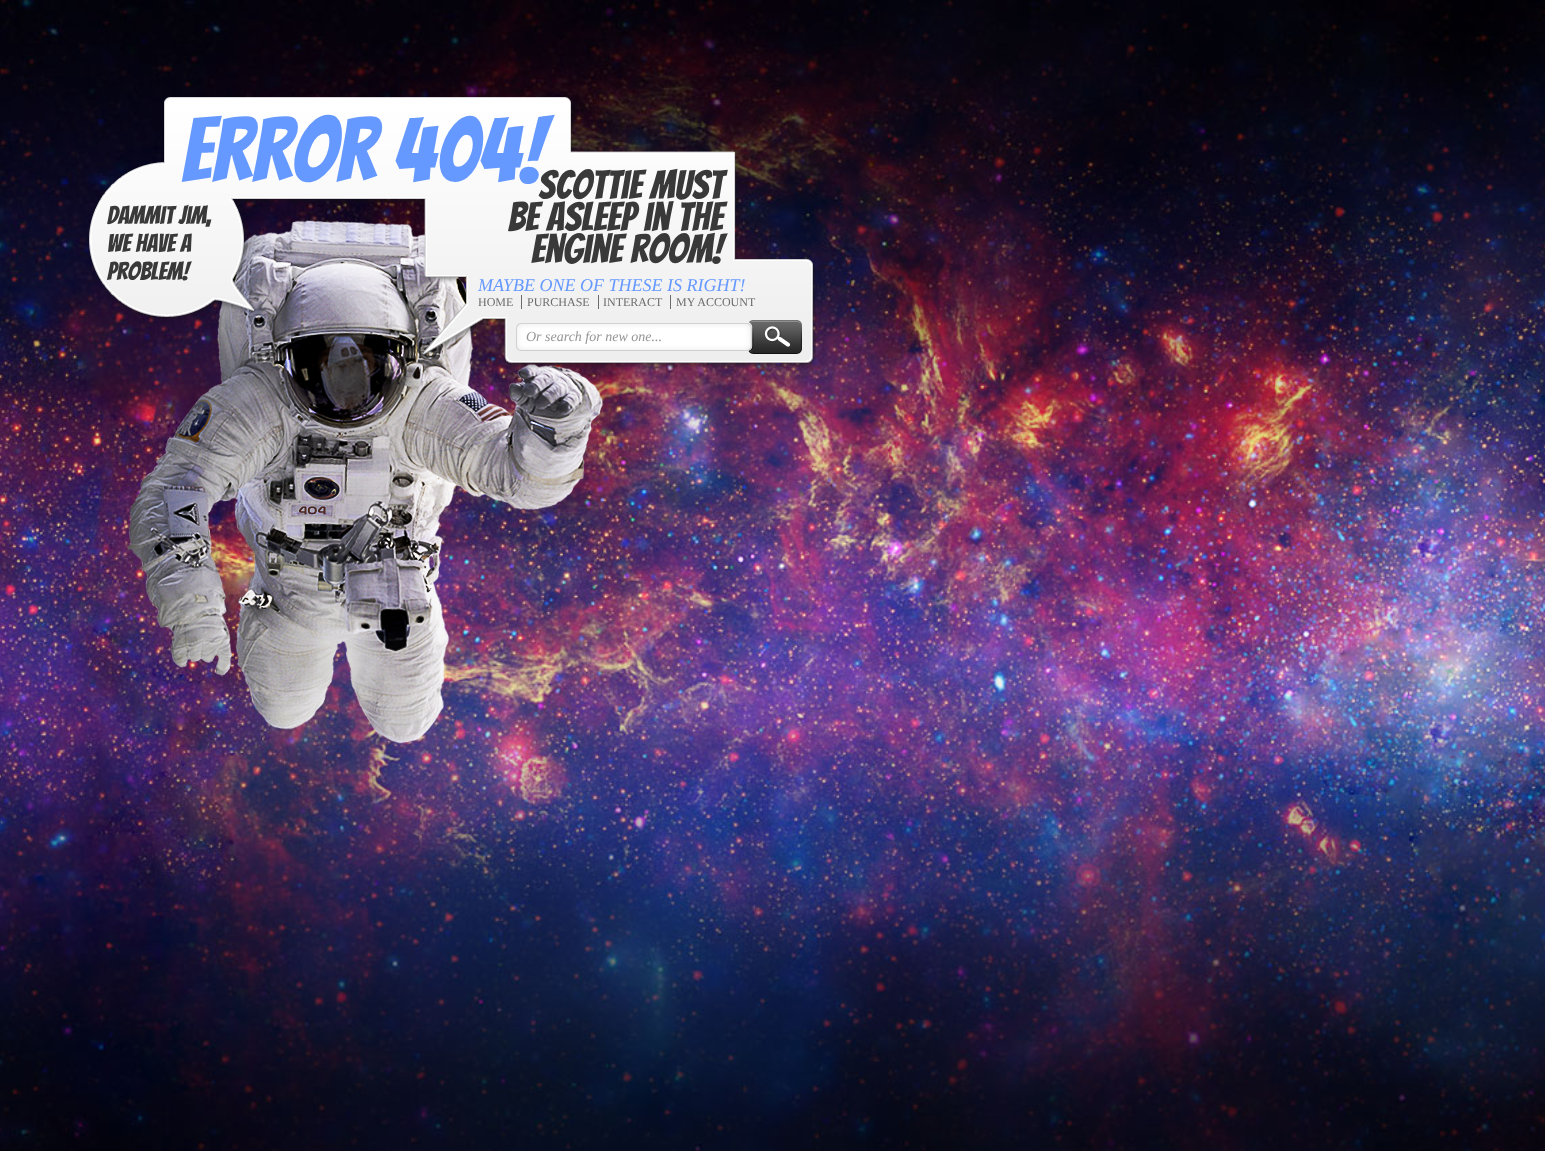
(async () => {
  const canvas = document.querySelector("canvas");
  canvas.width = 1545;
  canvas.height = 1151;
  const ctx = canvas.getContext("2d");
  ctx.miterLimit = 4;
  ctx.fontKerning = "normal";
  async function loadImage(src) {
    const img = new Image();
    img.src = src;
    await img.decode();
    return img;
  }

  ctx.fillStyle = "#ffffff";
  ctx.fillRect(0, 0, 1545, 1151);
  ctx.drawImage(await loadImage("img/1.png"), 0, 0, 1545, 1151);
  ctx.drawImage(await loadImage("img/2.png"), 89, 97, 727, 647);
  for (const [x, y, w, h, color] of [
    [521, 295, 1, 14, "#6d6c6c"],
    [598, 295, 1, 14, "#6d6c6c"],
    [670, 295, 1, 14, "#6d6c6c"],
  ]) {
    ctx.fillStyle = color;
    ctx.fillRect(x, y, w, h);
  }
  ctx.drawImage(await loadImage("img/3.png"), 516, 323, 232, 28);
  ctx.drawImage(await loadImage("img/4.png"), 748, 320, 54, 34);
  ctx.font = "90px Bangers";
  ctx.fillStyle = "#6699ff";
  ctx.fillText("Error 404!", 181, 182);
  ctx.font = "25px Bangers";
  ctx.fillStyle = "#393939";
  for (const [text, x, y] of [
    ["Dammit Jim,", 107, 224],
    ["we have a", 107, 252],
    ["problem!", 107, 280],
  ]) {
    ctx.fillText(text, x, y);
  }
  ctx.font = "40px Bangers";
  for (const [text, x, y] of [
    ["Scottie Must", 538, 199],
    ["be asleep in the", 508, 231],
    ["engine room!", 531, 263],
  ]) {
    ctx.fillText(text, x, y);
  }
  ctx.font = "italic 18px Liberation Serif";
  ctx.fillStyle = "#6699ff";
  ctx.fillText("MAYBE ONE OF THESE IS RIGHT!", 478, 291);
  ctx.font = "12px Liberation Serif";
  ctx.fillStyle = "#6d6c6c";
  for (const [text, x, y] of [
    ["HOME", 478, 306],
    ["PURCHASE", 527, 306],
    ["INTERACT", 603, 306],
    ["MY ACCOUNT", 676, 306],
  ]) {
    ctx.fillText(text, x, y);
  }
  ctx.font = "italic 14px Liberation Serif";
  ctx.fillStyle = "#959595";
  ctx.fillText("Or search for new one...", 526, 341);
})();
